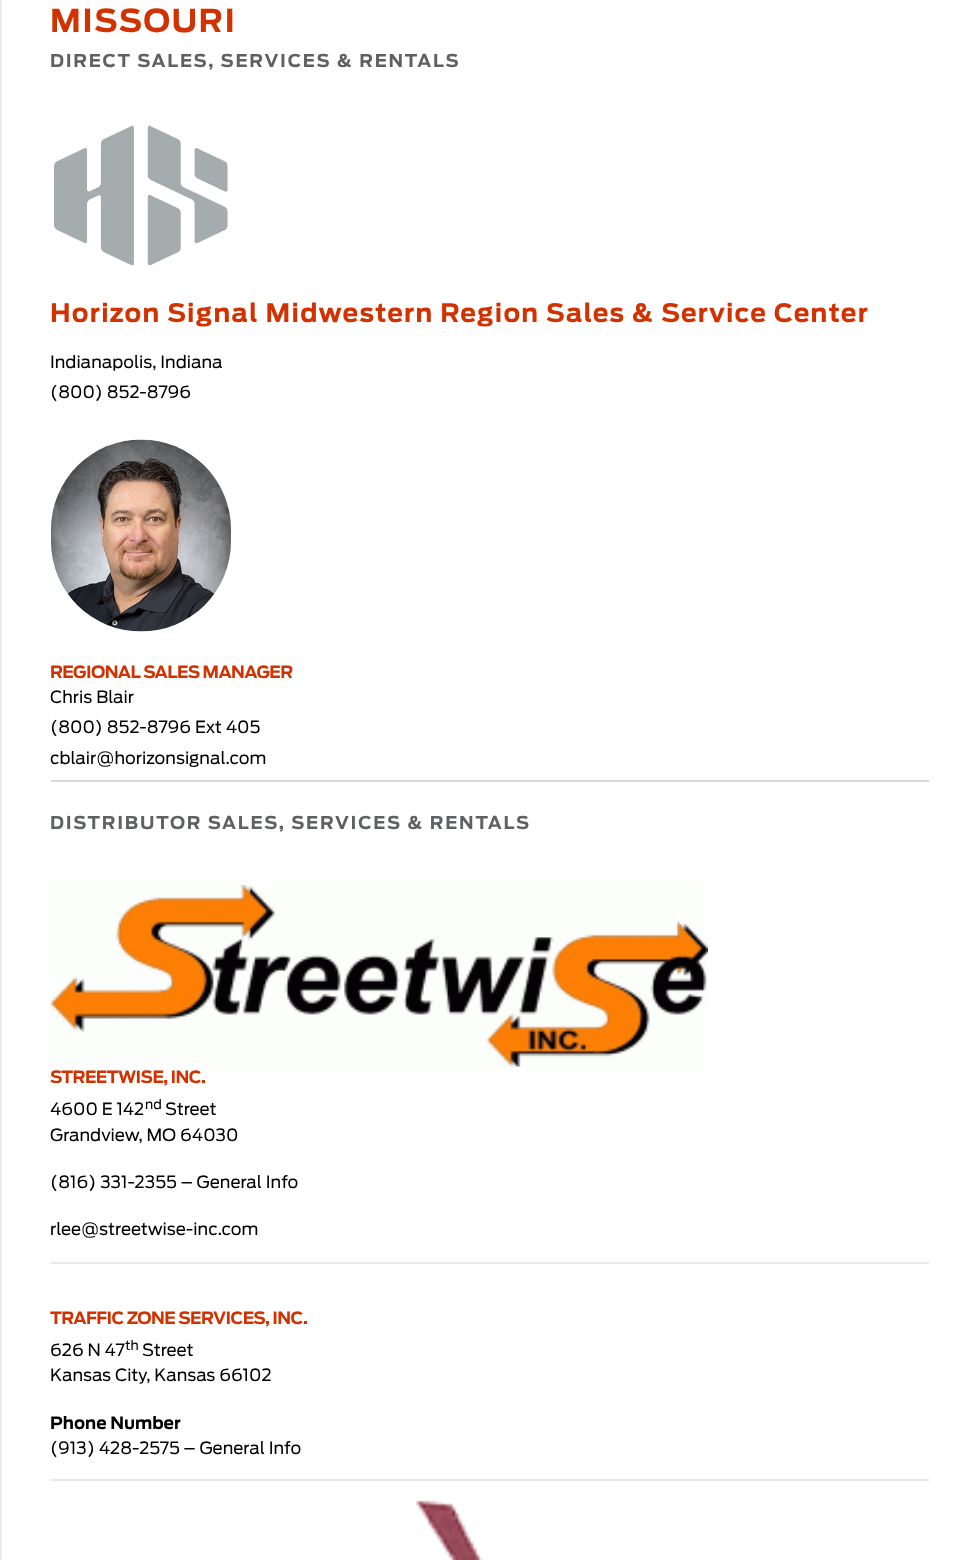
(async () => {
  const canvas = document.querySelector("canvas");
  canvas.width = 978;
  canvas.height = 1560;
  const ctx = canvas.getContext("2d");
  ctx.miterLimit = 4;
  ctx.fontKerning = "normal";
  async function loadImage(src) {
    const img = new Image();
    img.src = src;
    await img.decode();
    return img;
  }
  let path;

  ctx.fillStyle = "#ffffff";
  ctx.fillRect(0, 0, 978, 1560);
  ctx.fillStyle = "#b9b9b9";
  ctx.fillRect(0, 0, 2, 1560);
  ctx.save();
  path = new Path2D("M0 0H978V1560H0ZM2 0H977V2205H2Z");
  ctx.clip(path, "evenodd");
  ctx.fillStyle = "#ffffff";
  ctx.filter = "blur(8px)";
  ctx.beginPath();
  ctx.rect(-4, -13, 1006, 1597);
  ctx.fill();
  ctx.filter = "none";
  ctx.restore();
  ctx.drawImage(await loadImage("img/1.png"), 54, 125, 174, 141);
  ctx.drawImage(await loadImage("img/2.png"), 51, 439, 180, 193);
  ctx.fillStyle = "#d9d9d9";
  ctx.fillRect(51, 780, 878, 2);
  ctx.drawImage(await loadImage("img/3.png"), 51, 885, 657, 182);
  ctx.fillStyle = "#e9eaeb";
  ctx.fillRect(51, 1262, 878, 2);
  ctx.fillRect(51, 1479, 878, 2);
  ctx.drawImage(await loadImage("img/4.png"), 415, 1500, 68, 60);
  ctx.letterSpacing = "1.5px";
  ctx.font = "bold 31.5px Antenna";
  ctx.fillStyle = "#d13200";
  ctx.fillText("MISSOURI", 50, 32);
  ctx.letterSpacing = "1.75px";
  ctx.font = "bold 17.7px Antenna";
  ctx.fillStyle = "#5f6062";
  ctx.fillText("DIRECT SALES, SERVICES & RENTALS", 50, 67);
  ctx.letterSpacing = "1.25px";
  ctx.font = "bold 25.25px Antenna";
  ctx.fillStyle = "#d13200";
  ctx.fillText("Horizon Signal Midwestern Region Sales & Service Center", 50, 322);
  ctx.letterSpacing = "0px";
  ctx.font = "16.8px Antenna";
  ctx.fillStyle = "#000000";
  ctx.fillText("Indianapolis, Indiana", 50, 368);
  ctx.fillText("(800) 852-8796", 50, 398);
  ctx.letterSpacing = "-0.6px";
  ctx.font = "bold 16.8px Antenna";
  ctx.fillStyle = "#d13200";
  ctx.fillText("REGIONAL SALES MANAGER", 50, 678);
  ctx.letterSpacing = "0px";
  ctx.font = "16.8px Antenna";
  ctx.fillStyle = "#000000";
  for (const [text, x, y] of [
    ["Chris Blair", 50, 703],
    ["(800) 852-8796 Ext 405", 50, 733],
    ["cblair@horizonsignal.com", 50, 764],
  ]) {
    ctx.fillText(text, x, y);
  }
  ctx.letterSpacing = "1.75px";
  ctx.font = "bold 17.7px Antenna";
  ctx.fillStyle = "#5f6062";
  ctx.fillText("DISTRIBUTOR SALES, SERVICES & RENTALS", 50, 829);
  ctx.letterSpacing = "-0.6px";
  ctx.font = "bold 16.8px Antenna";
  ctx.fillStyle = "#d13200";
  ctx.fillText("STREETWISE, INC", 50, 1083);
  ctx.fillText(".", 201, 1083);
  ctx.letterSpacing = "0px";
  ctx.font = "16.8px Antenna";
  ctx.fillStyle = "#000000";
  ctx.fillText("4600 E 142", 50, 1115);
  ctx.font = "13px Antenna";
  ctx.fillText("nd", 145, 1109);
  ctx.font = "16.8px Antenna";
  for (const [text, x, y] of [
    ["Street", 165, 1115],
    ["Grandview, MO 64030", 50, 1141],
    ["(816) 331-2355 – General Info", 50, 1188],
    ["rlee@streetwise-inc.com", 50, 1235],
  ]) {
    ctx.fillText(text, x, y);
  }
  ctx.letterSpacing = "-0.6px";
  ctx.font = "bold 16.8px Antenna";
  ctx.fillStyle = "#d13200";
  ctx.fillText("TRAFFIC ZONE SERVICES, INC", 50, 1324);
  ctx.fillText(".", 303, 1324);
  ctx.letterSpacing = "0px";
  ctx.font = "16.8px Antenna";
  ctx.fillStyle = "#000000";
  ctx.fillText("626 N 47", 50, 1356);
  ctx.font = "13px Antenna";
  ctx.fillText("th", 125, 1350);
  ctx.font = "16.8px Antenna";
  ctx.fillText("Street", 142, 1356);
  ctx.fillText("Kansas City, Kansas 66102", 50, 1381);
  ctx.font = "bold 16.8px Antenna";
  ctx.fillText("Phone Number", 50, 1429);
  ctx.font = "16.8px Antenna";
  ctx.fillText("(913) 428-2575 – General Info", 50, 1454);
})();
